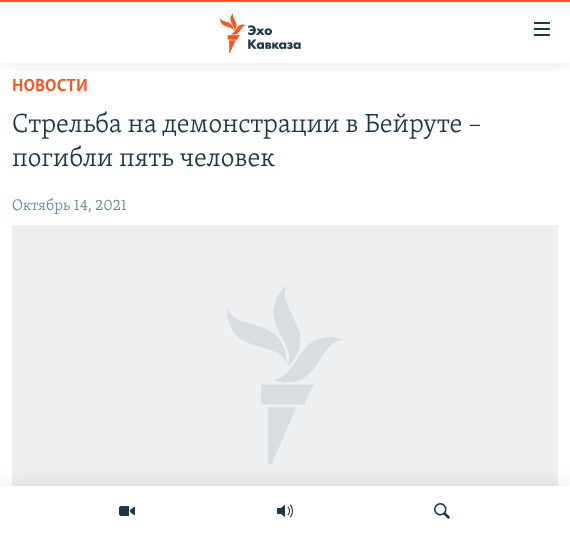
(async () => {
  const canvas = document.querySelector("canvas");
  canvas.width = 570;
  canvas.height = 536;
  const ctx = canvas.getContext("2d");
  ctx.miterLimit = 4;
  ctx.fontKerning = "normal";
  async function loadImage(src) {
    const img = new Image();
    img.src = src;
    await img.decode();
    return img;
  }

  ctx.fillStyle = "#ffffff";
  ctx.fillRect(0, 0, 570, 536);
  ctx.save();
  ctx.beginPath();
  ctx.rect(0, 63, 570, 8);
  ctx.clip();
  ctx.fillStyle = "rgba(0, 0, 0, 0.1)";
  ctx.filter = "blur(10px)";
  ctx.beginPath();
  ctx.rect(0, 0, 570, 63);
  ctx.fill();
  ctx.filter = "none";
  ctx.restore();
  ctx.fillStyle = "#fa5420";
  ctx.fillRect(0, 0, 570, 2);
  ctx.drawImage(await loadImage("img/1.png"), 220, 13, 81, 40);
  ctx.drawImage(await loadImage("img/2.png"), 534, 22, 16, 14);
  ctx.fillStyle = "#edeff0";
  ctx.fillRect(12, 225, 546, 261);
  ctx.drawImage(await loadImage("img/6.png"), 227, 286, 116, 179);
  ctx.fillStyle = "rgba(0, 0, 0, 0.1)";
  ctx.filter = "blur(10px)";
  ctx.beginPath();
  ctx.rect(0, 486, 570, 50);
  ctx.fill();
  ctx.filter = "none";
  ctx.fillStyle = "#ffffff";
  ctx.fillRect(0, 486, 570, 50);
  ctx.drawImage(await loadImage("img/3.png"), 119, 506, 16, 10);
  ctx.drawImage(await loadImage("img/4.png"), 277, 504, 16, 14);
  ctx.drawImage(await loadImage("img/5.png"), 434, 503, 16, 16);
  ctx.font = "bold 18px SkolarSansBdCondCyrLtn";
  ctx.fillStyle = "#fa5420";
  ctx.fillText("НОВОСТИ", 12, 91);
  ctx.font = "300 27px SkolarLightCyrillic";
  ctx.fillStyle = "#1a3948";
  ctx.fillText("Стрельба на демонстрации в Бейруте –", 12, 132);
  ctx.fillText("погибли пять человек", 12, 166);
  ctx.font = "300 15.75px SkolarLightCyrillic";
  ctx.fillStyle = "#678a9b";
  ctx.fillText("Октябрь 14, 2021", 12, 210);
})();
